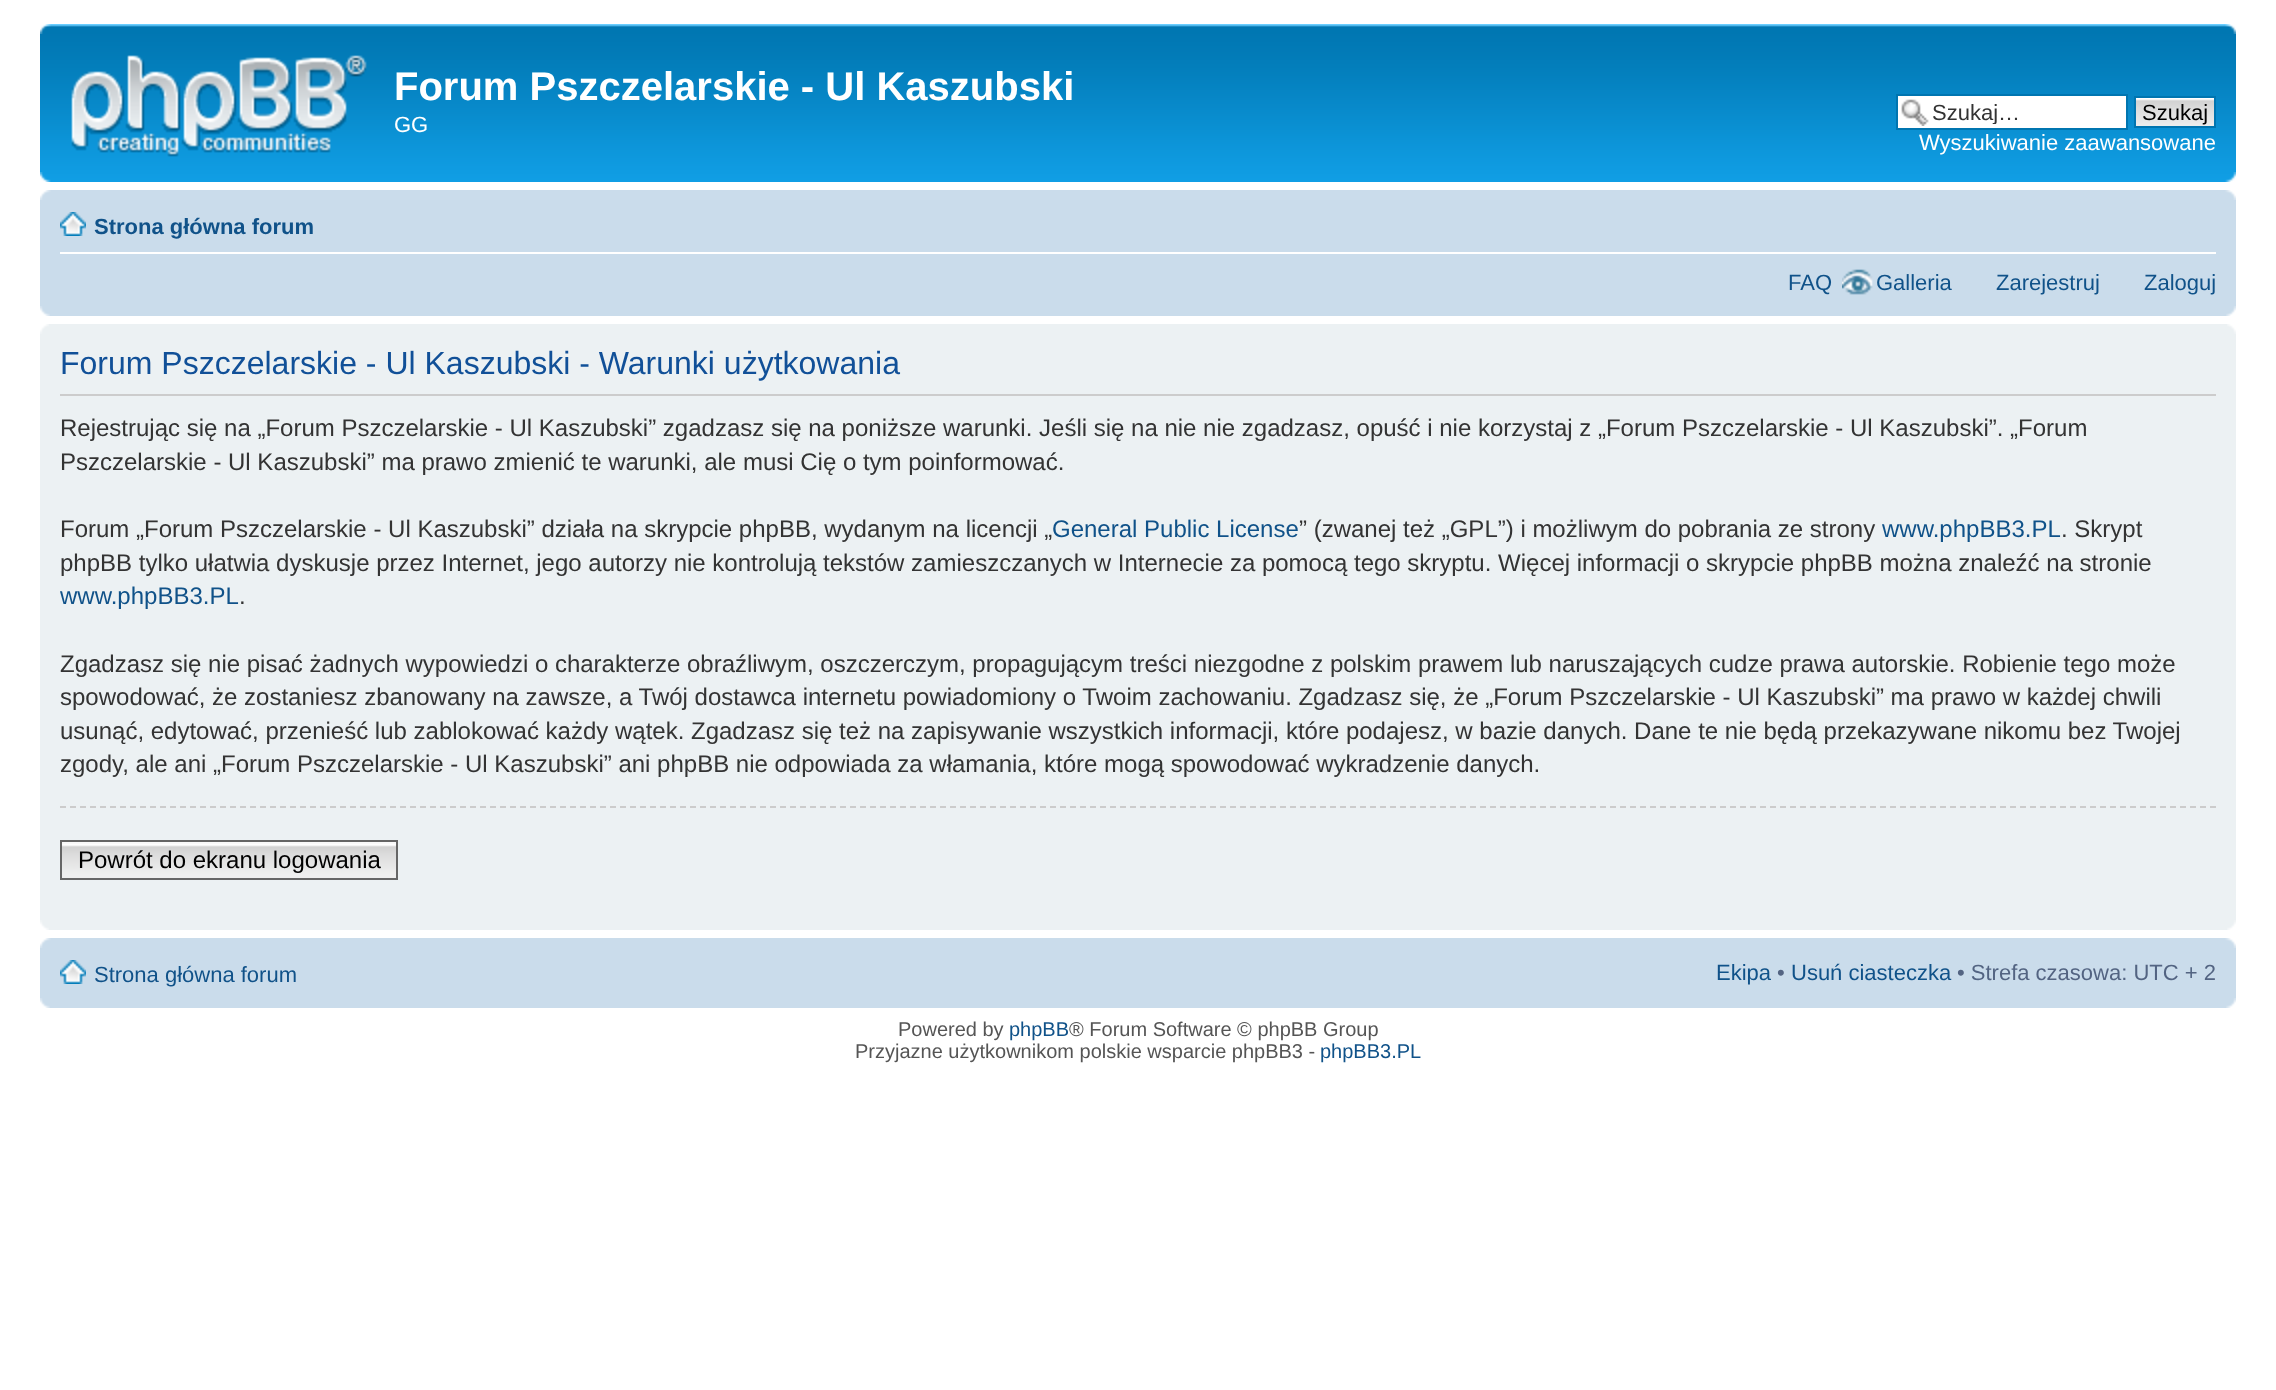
(async () => {
  const canvas = document.querySelector("canvas");
  canvas.width = 2276;
  canvas.height = 1390;
  const ctx = canvas.getContext("2d");
  ctx.miterLimit = 4;
  ctx.fontKerning = "normal";
  async function loadImage(src) {
    const img = new Image();
    img.src = src;
    await img.decode();
    return img;
  }
  let path;

  ctx.fillStyle = "#ffffff";
  ctx.fillRect(0, 0, 2276, 1390);
  ctx.drawImage(await loadImage("img/1.png"), 40, 24, 2196, 158);
  ctx.drawImage(await loadImage("img/2.png"), 40, 24, 11, 10);
  ctx.drawImage(await loadImage("img/3.png"), 2225, 24, 11, 10);
  ctx.drawImage(await loadImage("img/4.png"), 71, 55, 296, 102);
  ctx.fillRect(1898, 96, 228, 32);
  ctx.drawImage(await loadImage("img/5.png"), 1901, 99, 28, 27);
  ctx.strokeStyle = "#0075b0";
  ctx.lineWidth = 2;
  ctx.strokeRect(1897, 95, 230, 34);
  ctx.drawImage(await loadImage("img/6.png"), 2136, 98, 78, 28);
  ctx.strokeRect(2135, 97, 80, 30);
  ctx.drawImage(await loadImage("img/7.png"), 40, 172, 11, 10);
  ctx.drawImage(await loadImage("img/8.png"), 2225, 172, 11, 10);
  ctx.fillStyle = "#cadceb";
  ctx.fillRect(40, 190, 2196, 126);
  ctx.drawImage(await loadImage("img/9.png"), 40, 190, 11, 10);
  ctx.drawImage(await loadImage("img/10.png"), 2225, 190, 11, 10);
  ctx.fillStyle = "#ffffff";
  ctx.fillRect(60, 252, 2156, 2);
  ctx.drawImage(await loadImage("img/11.png"), 60, 212, 26, 24);
  ctx.drawImage(await loadImage("img/12.png"), 1842, 269, 31, 26);
  ctx.drawImage(await loadImage("img/13.png"), 40, 306, 10, 10);
  ctx.drawImage(await loadImage("img/14.png"), 2226, 306, 10, 10);
  ctx.fillStyle = "#ecf1f3";
  ctx.fillRect(40, 324, 2196, 606);
  ctx.drawImage(await loadImage("img/15.png"), 40, 324, 9, 10);
  ctx.drawImage(await loadImage("img/16.png"), 2227, 324, 9, 10);
  ctx.fillStyle = "#cccccc";
  ctx.fillRect(60, 394, 2156, 2);
  path = new Path2D("M60 807H2216");
  ctx.strokeStyle = "#cccccc";
  ctx.setLineDash([6, 4]);
  ctx.stroke(path);
  ctx.drawImage(await loadImage("img/17.png"), 62, 844, 334, 34);
  ctx.fillStyle = "#fafafa";
  ctx.fillRect(62, 842, 334, 2);
  ctx.strokeStyle = "#666666";
  ctx.setLineDash([]);
  ctx.strokeRect(61, 841, 336, 38);
  ctx.drawImage(await loadImage("img/18.png"), 40, 920, 9, 10);
  ctx.drawImage(await loadImage("img/19.png"), 2227, 920, 9, 10);
  ctx.fillStyle = "#cadceb";
  ctx.fillRect(40, 938, 2196, 70);
  ctx.drawImage(await loadImage("img/9.png"), 40, 938, 11, 10);
  ctx.drawImage(await loadImage("img/10.png"), 2225, 938, 11, 10);
  ctx.drawImage(await loadImage("img/11.png"), 60, 960, 26, 24);
  ctx.drawImage(await loadImage("img/13.png"), 40, 998, 10, 10);
  ctx.drawImage(await loadImage("img/14.png"), 2226, 998, 10, 10);
  ctx.font = "bold 40px Liberation Sans";
  ctx.fillStyle = "#ffffff";
  ctx.fillText("Forum Pszczelarskie - Ul Kaszubski", 394, 100);
  ctx.font = "22px Liberation Sans";
  ctx.fillText("GG", 394, 132);
  ctx.save();
  ctx.beginPath();
  ctx.rect(1932, 100, 190, 24);
  ctx.clip();
  ctx.fillStyle = "#333333";
  ctx.fillText("Szukaj…", 1932, 120);
  ctx.restore();
  ctx.fillStyle = "#000000";
  ctx.fillText("Szukaj", 2142, 120);
  ctx.fillStyle = "#ffffff";
  ctx.fillText("Wyszukiwanie zaawansowane", 1919, 150);
  ctx.font = "bold 22px Liberation Sans";
  ctx.fillStyle = "#105289";
  ctx.fillText("Strona główna forum", 94, 234);
  ctx.font = "22px Liberation Sans";
  for (const [text, x, y] of [
    ["FAQ", 1788, 290],
    ["Galleria", 1876, 290],
    ["Zarejestruj", 1996, 290],
    ["Zaloguj", 2144, 290],
  ]) {
    ctx.fillText(text, x, y);
  }
  ctx.font = "32px Liberation Sans";
  ctx.fillStyle = "#115098";
  ctx.fillText("Forum Pszczelarskie - Ul Kaszubski - Warunki użytkowania", 60, 374);
  ctx.font = "24px Liberation Sans";
  ctx.fillStyle = "#333333";
  for (const [text, x, y] of [
    ["Rejestrując się na „Forum Pszczelarskie - Ul Kaszubski” zgadzasz się na poniższe warunki. Jeśli się na nie nie zgadzasz, opuść i nie korzystaj z „Forum Pszczelarskie - Ul Kaszubski”. „Forum", 60, 436],
    ["Pszczelarskie - Ul Kaszubski” ma prawo zmienić te warunki, ale musi Cię o tym poinformować.", 60, 470],
    ["Forum „Forum Pszczelarskie - Ul Kaszubski” działa na skrypcie phpBB, wydanym na licencji „", 60, 537],
  ]) {
    ctx.fillText(text, x, y);
  }
  ctx.fillStyle = "#105289";
  ctx.fillText("General Public License", 1052, 537);
  ctx.fillStyle = "#333333";
  ctx.fillText("” (zwanej też „GPL”) i możliwym do pobrania ze strony", 1299, 537);
  ctx.fillStyle = "#105289";
  ctx.fillText("www.phpBB3.PL", 1882, 537);
  ctx.fillStyle = "#333333";
  ctx.fillText(". Skrypt", 2061, 537);
  ctx.fillText("phpBB tylko ułatwia dyskusje przez Internet, jego autorzy nie kontrolują tekstów zamieszczanych w Internecie za pomocą tego skryptu. Więcej informacji o skrypcie phpBB można znaleźć na stronie", 60, 571);
  ctx.fillStyle = "#105289";
  ctx.fillText("www.phpBB3.PL", 60, 604);
  ctx.fillStyle = "#333333";
  for (const [text, x, y] of [
    [".", 239, 604],
    ["Zgadzasz się nie pisać żadnych wypowiedzi o charakterze obraźliwym, oszczerczym, propagującym treści niezgodne z polskim prawem lub naruszających cudze prawa autorskie. Robienie tego może", 60, 672],
    ["spowodować, że zostaniesz zbanowany na zawsze, a Twój dostawca internetu powiadomiony o Twoim zachowaniu. Zgadzasz się, że „Forum Pszczelarskie - Ul Kaszubski” ma prawo w każdej chwili", 60, 705],
    ["usunąć, edytować, przenieść lub zablokować każdy wątek. Zgadzasz się też na zapisywanie wszystkich informacji, które podajesz, w bazie danych. Dane te nie będą przekazywane nikomu bez Twojej", 60, 739],
    ["zgody, ale ani „Forum Pszczelarskie - Ul Kaszubski” ani phpBB nie odpowiada za włamania, które mogą spowodować wykradzenie danych.", 60, 772],
  ]) {
    ctx.fillText(text, x, y);
  }
  ctx.fillStyle = "#000000";
  ctx.fillText("Powrót do ekranu logowania", 78, 868);
  ctx.font = "22px Liberation Sans";
  ctx.fillStyle = "#105289";
  ctx.fillText("Strona główna forum", 94, 982);
  ctx.fillText("Ekipa", 1716, 980);
  ctx.fillStyle = "#536482";
  ctx.fillText("•", 1777, 980);
  ctx.fillStyle = "#105289";
  ctx.fillText("Usuń ciasteczka", 1791, 980);
  ctx.fillStyle = "#536482";
  ctx.fillText("• Strefa czasowa: UTC + 2", 1957, 980);
  ctx.font = "20px Liberation Sans";
  ctx.fillStyle = "#555555";
  ctx.fillText("Powered by", 898, 1036);
  ctx.fillStyle = "#105289";
  ctx.fillText("phpBB", 1009, 1036);
  ctx.fillStyle = "#555555";
  ctx.fillText("® Forum Software © phpBB Group", 1069, 1036);
  ctx.fillText("Przyjazne użytkownikom polskie wsparcie phpBB3 -", 855, 1058);
  ctx.fillStyle = "#105289";
  ctx.fillText("phpBB3.PL", 1320, 1058);
})();
